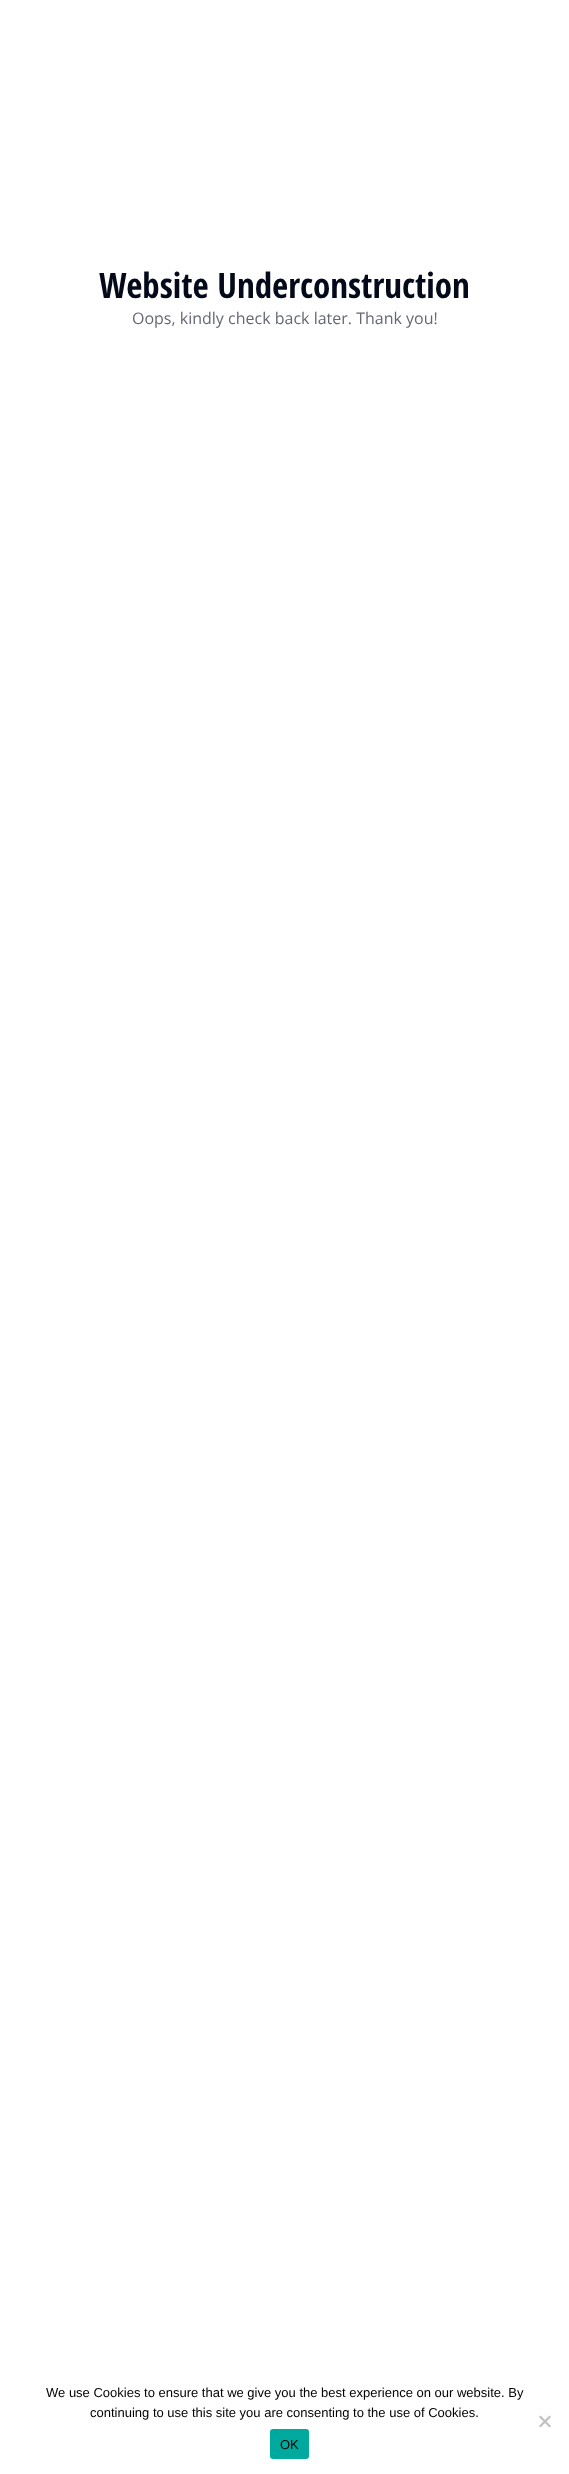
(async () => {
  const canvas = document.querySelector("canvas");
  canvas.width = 569;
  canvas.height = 2474;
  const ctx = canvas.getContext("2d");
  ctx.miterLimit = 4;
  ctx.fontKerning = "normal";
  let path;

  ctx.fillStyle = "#ffffff";
  ctx.fillRect(0, 0, 569, 2474);
  ctx.fillStyle = "#c0c0c0";
  path = new Path2D("M549.5 2415.5L551 2417L540.5 2427.5L539 2426Z");
  ctx.fill(path);
  path = new Path2D("M539 2417L540.5 2415.5L551 2426L549.5 2427.5Z");
  ctx.fill(path);
  ctx.fillStyle = "#00a99d";
  ctx.beginPath();
  ctx.roundRect(270, 2429, 39, 30, 3);
  ctx.fill();
  ctx.font = "bold 35px Open Sans Condensed";
  ctx.fillStyle = "#040a19";
  ctx.fillText("Website Underconstruction", 99, 298);
  ctx.font = "16px Open Sans";
  ctx.fillStyle = "#656871";
  ctx.fillText("Oops, kindly check back later. Thank you!", 132, 324);
  ctx.font = "13px Liberation Sans";
  ctx.fillStyle = "#000000";
  for (const [text, x, y] of [
    ["We use Cookies to ensure that we give you the best experience on our website. By", 46, 2397],
    ["continuing to use this site you are consenting to the use of Cookies.", 90, 2417],
    ["OK", 280, 2449],
  ]) {
    ctx.fillText(text, x, y);
  }
})();
